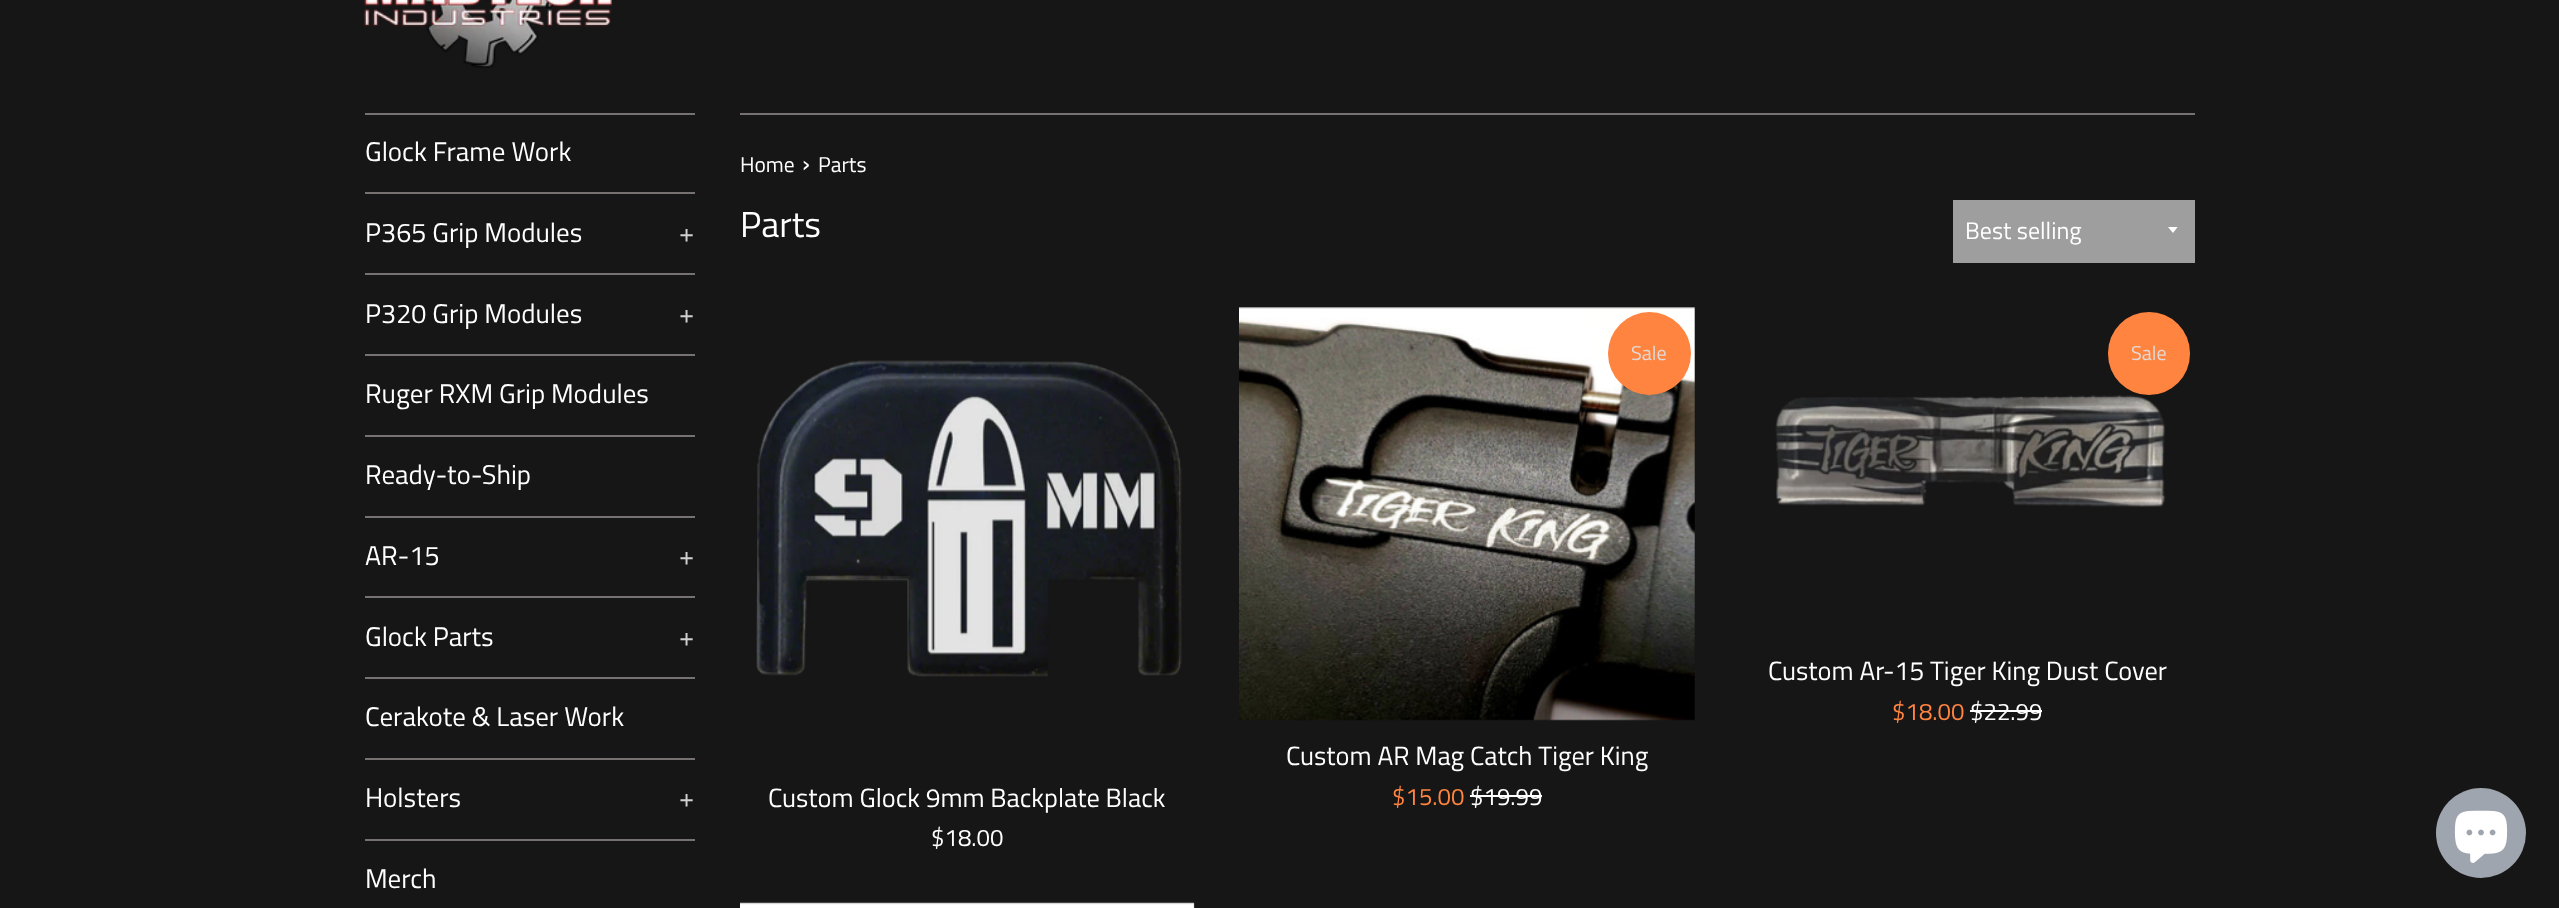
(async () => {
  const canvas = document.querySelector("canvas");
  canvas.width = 2559;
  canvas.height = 908;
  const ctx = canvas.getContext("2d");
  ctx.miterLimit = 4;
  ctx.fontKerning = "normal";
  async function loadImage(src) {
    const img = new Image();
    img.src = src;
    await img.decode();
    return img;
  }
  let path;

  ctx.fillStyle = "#161616";
  ctx.fillRect(0, 0, 2559, 908);
  ctx.drawImage(await loadImage("img/1.png"), 364, 0, 248, 68);
  for (const [x, y, w, h, color] of [
    [365, 113, 330, 2, "#767272"],
    [365, 192, 330, 2, "#767272"],
    [365, 273, 330, 2, "#767272"],
    [365, 354, 330, 2, "#767272"],
    [365, 435, 330, 2, "#767272"],
    [365, 516, 330, 2, "#767272"],
    [365, 596, 330, 2, "#767272"],
    [365, 677, 330, 2, "#767272"],
    [365, 758, 330, 2, "#767272"],
    [365, 839, 330, 2, "#767272"],
    [740, 113, 1455, 2, "#767272"],
    [1953, 200, 242, 63, "#9e9e9e"],
  ]) {
    ctx.fillStyle = color;
    ctx.fillRect(x, y, w, h);
  }
  ctx.save();
  ctx.beginPath();
  ctx.rect(2168, 227, 12, 7);
  ctx.clip();
  ctx.fillStyle = "#ffffff";
  path = new Path2D("M2167.5 226.5L2173 233L2178 226.5Z");
  ctx.fill(path);
  ctx.restore();
  ctx.drawImage(await loadImage("img/2.png"), 1239, 307, 456, 414);
  ctx.fillStyle = "#ff8440";
  ctx.beginPath();
  ctx.arc(1649.5, 353.5, 41.5, 0, Math.PI * 2);
  ctx.fill();
  ctx.fillStyle = "#ffffff";
  ctx.fillRect(1470, 795, 72, 2);
  ctx.fillStyle = "#ff8440";
  ctx.beginPath();
  ctx.roundRect(2108, 312, 82, 83, 41);
  ctx.fill();
  ctx.fillStyle = "#ffffff";
  ctx.fillRect(1970, 710, 72, 2);
  ctx.drawImage(await loadImage("img/3.png"), 1775, 395, 391, 112);
  ctx.drawImage(await loadImage("img/4.png"), 756, 360, 426, 317);
  ctx.drawImage(await loadImage("img/5.png"), 740, 902, 455, 6);
  ctx.fillStyle = "#9ea5ae";
  ctx.beginPath();
  ctx.arc(2481, 833, 45, 0, Math.PI * 2);
  ctx.fill();
  ctx.drawImage(await loadImage("img/6.png"), 2454, 810, 54, 53);
  ctx.font = "27px Titillium Web";
  ctx.fillStyle = "#ffffff";
  ctx.fillText("Glock Frame Work", 365, 161);
  ctx.fillText("P365 Grip Modules", 365, 242);
  ctx.fillStyle = "#d0d0d0";
  ctx.fillText("+", 679, 242);
  ctx.fillStyle = "#ffffff";
  ctx.fillText("P320 Grip Modules", 365, 323);
  ctx.fillStyle = "#d0d0d0";
  ctx.fillText("+", 679, 323);
  ctx.fillStyle = "#ffffff";
  for (const [text, x, y] of [
    ["Ruger RXM Grip Modules", 365, 403],
    ["Ready-to-Ship", 365, 484],
    ["AR-15", 365, 565],
  ]) {
    ctx.fillText(text, x, y);
  }
  ctx.fillStyle = "#d0d0d0";
  ctx.fillText("+", 679, 565);
  ctx.fillStyle = "#ffffff";
  ctx.fillText("Glock Parts", 365, 646);
  ctx.fillStyle = "#d0d0d0";
  ctx.fillText("+", 679, 646);
  ctx.fillStyle = "#ffffff";
  ctx.fillText("Cerakote & Laser Work", 365, 726);
  ctx.fillText("Holsters", 365, 807);
  ctx.fillStyle = "#d0d0d0";
  ctx.fillText("+", 679, 807);
  ctx.fillStyle = "#ffffff";
  ctx.fillText("Merch", 365, 888);
  ctx.font = "21.5px Titillium Web";
  ctx.fillText("Home", 740, 172);
  ctx.font = "26.4px Titillium Web";
  ctx.fillText("›", 802, 172);
  ctx.font = "21.5px Titillium Web";
  ctx.fillText("Parts", 818, 172);
  ctx.font = "36px Titillium Web";
  ctx.fillText("Parts", 740, 237);
  ctx.font = "24px Titillium Web";
  ctx.fillText("Best selling", 1965, 239);
  ctx.font = "20px Titillium Web";
  ctx.fillStyle = "#e2d9d4";
  ctx.fillText("Sale", 1631, 360);
  ctx.font = "24px Titillium Web";
  ctx.fillStyle = "#ff8440";
  ctx.fillText("$15.00", 1392, 805);
  ctx.fillStyle = "#ffffff";
  ctx.fillText("$19.99", 1470, 805);
  ctx.font = "26.4px Titillium Web";
  ctx.fillText("Custom AR Mag Catch Tiger King", 1286, 765);
  ctx.font = "20px Titillium Web";
  ctx.fillStyle = "#e2d9d4";
  ctx.fillText("Sale", 2131, 360);
  ctx.font = "24px Titillium Web";
  ctx.fillStyle = "#ff8440";
  ctx.fillText("$18.00", 1892, 720);
  ctx.fillStyle = "#ffffff";
  ctx.fillText("$22.99", 1970, 720);
  ctx.font = "26.4px Titillium Web";
  ctx.fillText("Custom Ar-15 Tiger King Dust Cover", 1768, 680);
  ctx.fillText("Custom Glock 9mm Backplate Black", 768, 807);
  ctx.font = "24px Titillium Web";
  ctx.fillText("$18.00", 931, 846);
})();
